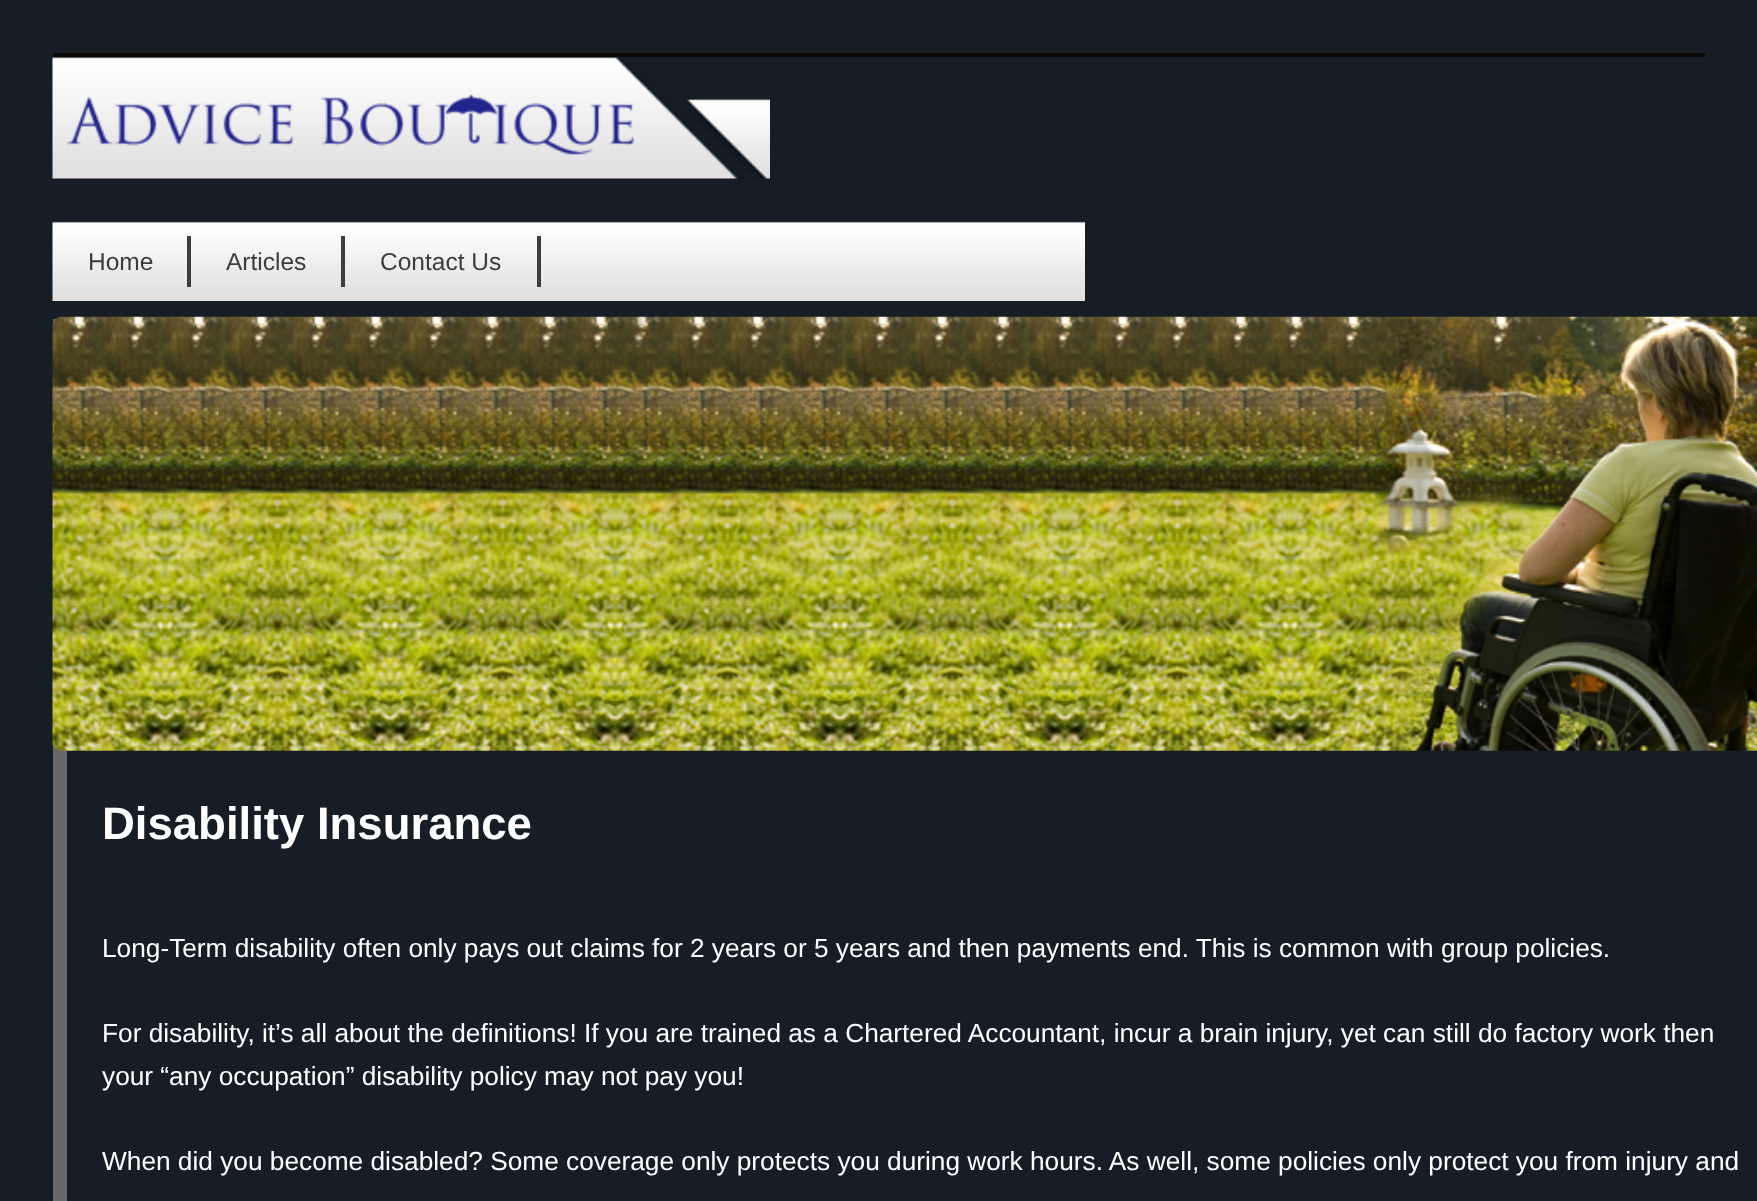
(async () => {
  const canvas = document.querySelector("canvas");
  canvas.width = 1757;
  canvas.height = 1201;
  const ctx = canvas.getContext("2d");
  ctx.miterLimit = 4;
  ctx.fontKerning = "normal";
  async function loadImage(src) {
    const img = new Image();
    img.src = src;
    await img.decode();
    return img;
  }

  ctx.fillStyle = "#161d25";
  ctx.fillRect(0, 0, 1757, 1201);
  ctx.fillStyle = "#0a0a0a";
  ctx.fillRect(53, 53, 1652, 4);
  ctx.drawImage(await loadImage("img/1.png"), 52, 57, 718, 122);
  ctx.drawImage(await loadImage("img/2.png"), 52, 221, 1033, 80);
  for (const [x, y, w, h, color] of [
    [187, 236, 4, 51, "#3c3d3f"],
    [341, 236, 4, 51, "#3c3d3f"],
    [537, 236, 4, 51, "#3c3d3f"],
  ]) {
    ctx.fillStyle = color;
    ctx.fillRect(x, y, w, h);
  }
  ctx.strokeStyle = "#676767";
  ctx.lineWidth = 14;
  ctx.strokeRect(60, 326, 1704, 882);
  ctx.drawImage(await loadImage("img/3.png"), 52, 316, 1705, 435);
  ctx.font = "24.5px Liberation Sans";
  for (const [text, x, y] of [
    ["Home", 88, 270],
    ["Articles", 226, 270],
    ["Contact Us", 380, 270],
  ]) {
    ctx.fillText(text, x, y);
  }
  ctx.font = "bold 45.5px Liberation Sans";
  ctx.fillStyle = "#ffffff";
  ctx.fillText("Disability Insurance", 102, 839);
  ctx.font = "26.25px Liberation Sans";
  for (const [text, x, y] of [
    ["Long-Term disability often only pays out claims for 2 years or 5 years and then payments end. This is common with group policies.", 102, 957],
    ["For disability, it’s all about the definitions! If you are trained as a Chartered Accountant, incur a brain injury, yet can still do factory work then", 102, 1042],
    ["your “any occupation” disability policy may not pay you!", 102, 1085],
    ["When did you become disabled? Some coverage only protects you during work hours. As well, some policies only protect you from injury and", 102, 1170],
  ]) {
    ctx.fillText(text, x, y);
  }
})();
